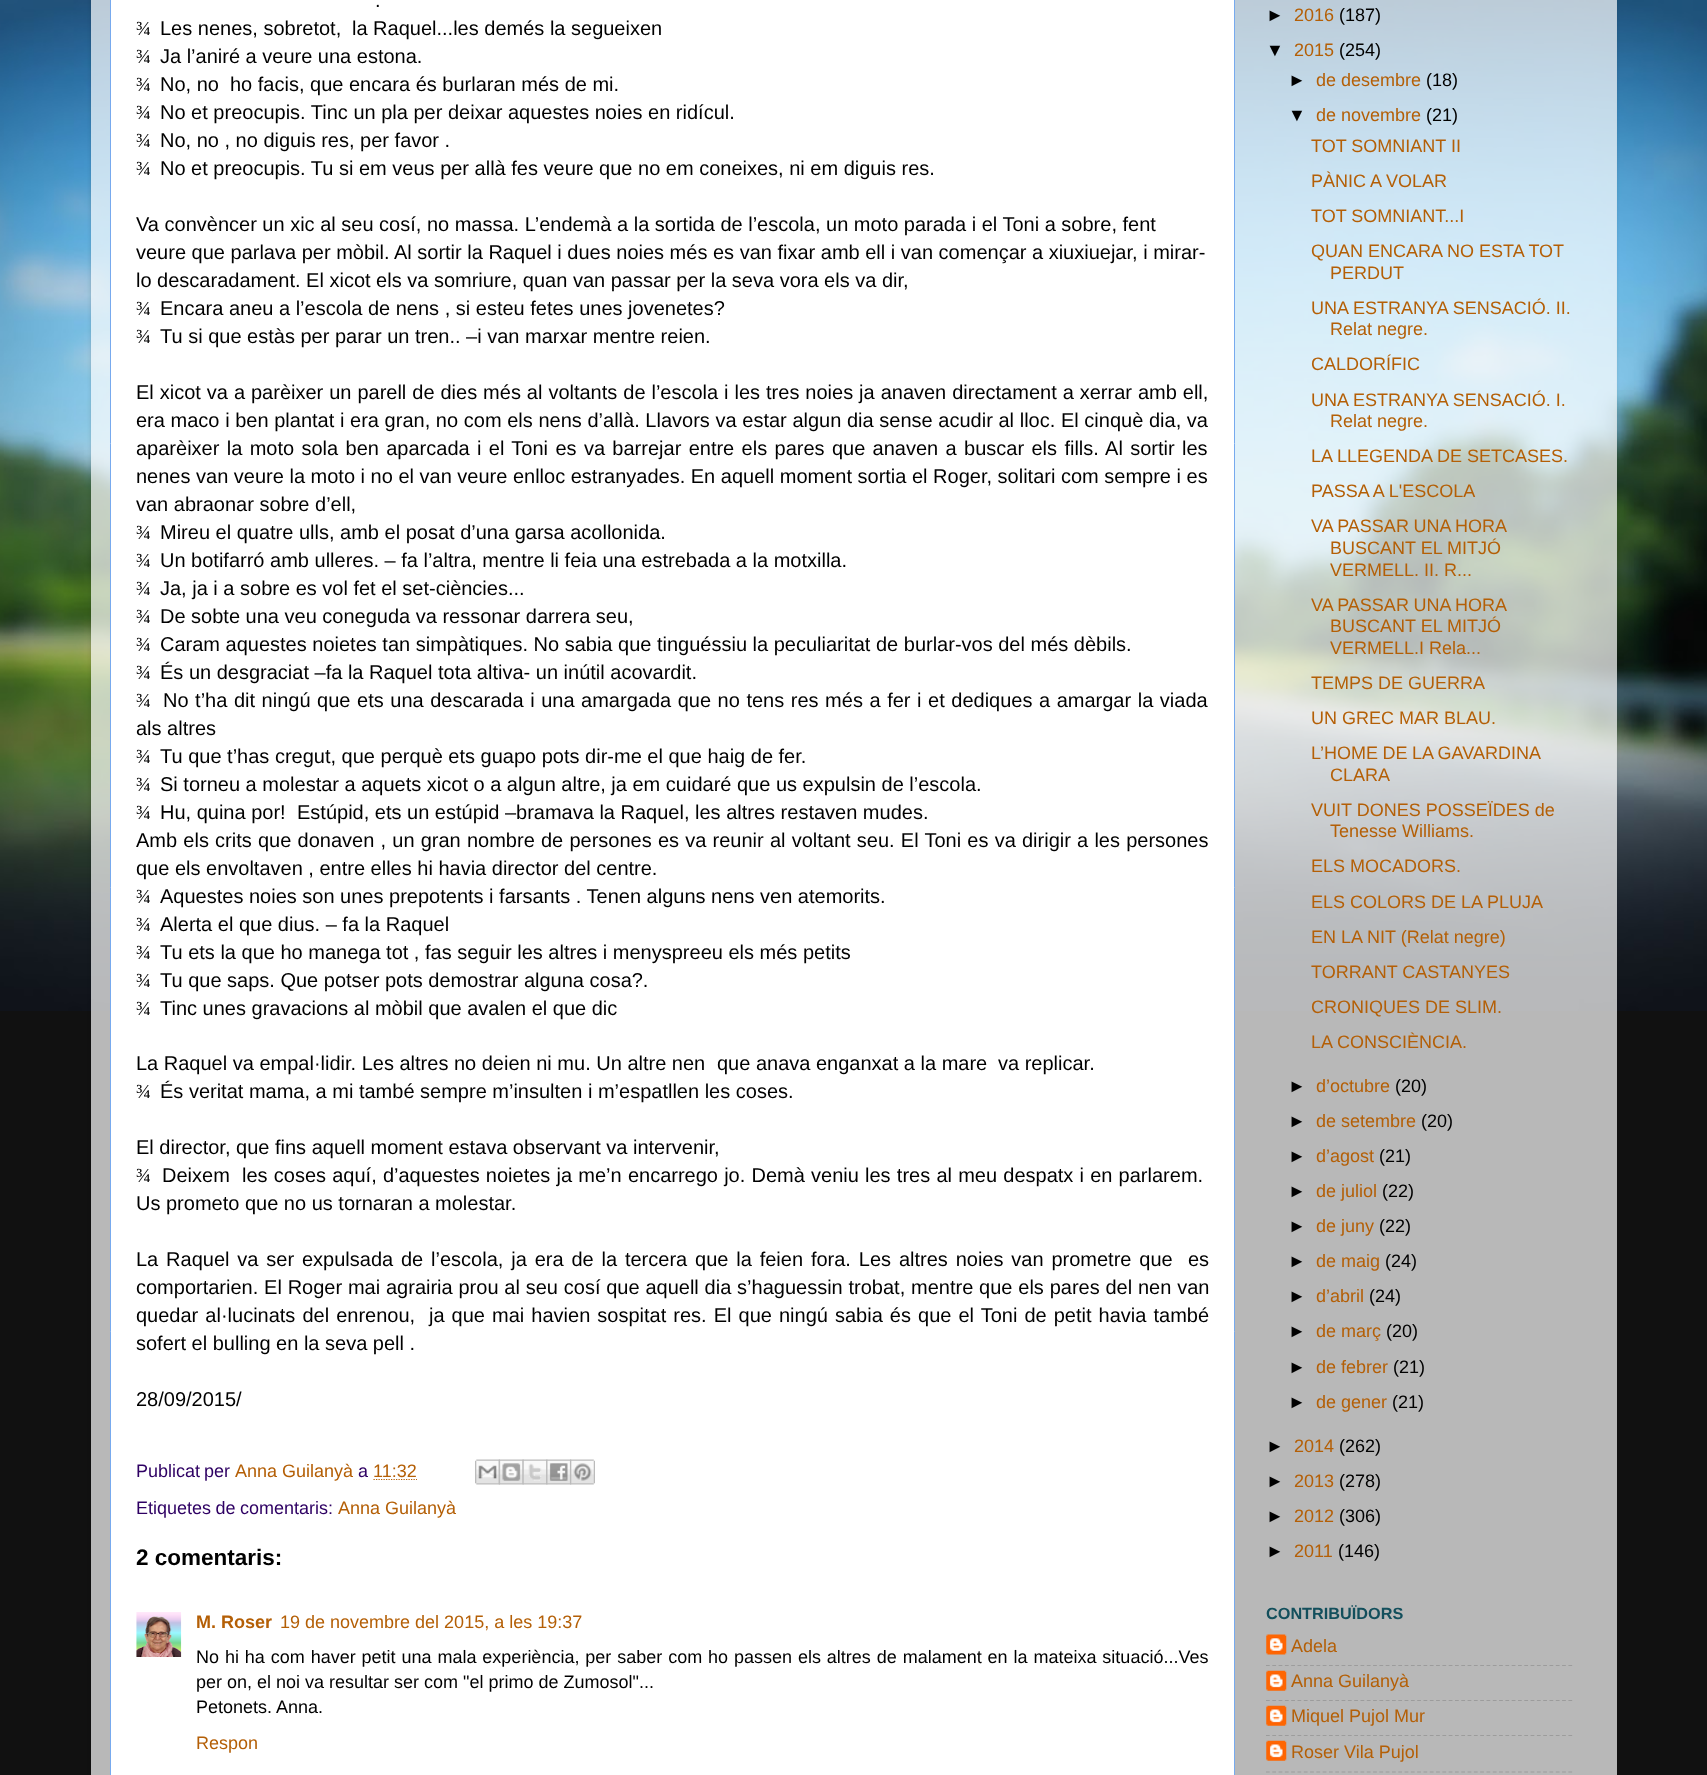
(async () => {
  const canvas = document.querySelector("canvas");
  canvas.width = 1707;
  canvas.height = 1775;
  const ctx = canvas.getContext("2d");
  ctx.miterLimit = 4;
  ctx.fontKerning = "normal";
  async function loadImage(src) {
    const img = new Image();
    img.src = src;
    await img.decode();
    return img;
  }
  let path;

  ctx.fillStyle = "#111111";
  ctx.fillRect(0, 0, 1707, 1775);
  ctx.drawImage(await loadImage("img/1.png"), 0, 0, 1707, 1011);
  ctx.save();
  path = new Path2D("M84 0H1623V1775H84ZM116-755H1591C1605-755 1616-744 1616-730V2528H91V-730C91-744 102-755 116-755Z");
  ctx.clip(path, "evenodd");
  ctx.fillStyle = "rgba(0, 0, 0, 0.15)";
  ctx.filter = "blur(2px)";
  ctx.beginPath();
  ctx.roundRect(91, -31, 1525, 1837, 25);
  ctx.fill();
  ctx.filter = "none";
  ctx.restore();
  ctx.fillStyle = "rgba(255, 255, 255, 0.7)";
  ctx.fillRect(91, 0, 1526, 1775);
  ctx.fillStyle = "#ffffff";
  ctx.beginPath();
  ctx.rect(110.5, -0.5, 1124, 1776);
  ctx.fill();
  ctx.strokeStyle = "#77aaee";
  ctx.stroke();
  path = new Path2D("M373.5 1479.5H417");
  ctx.strokeStyle = "#b45f06";
  ctx.lineWidth = 1.2;
  ctx.setLineDash([1.25, 1.25]);
  ctx.stroke(path);
  ctx.drawImage(await loadImage("img/2.png"), 475, 1459, 25, 26);
  ctx.drawImage(await loadImage("img/3.png"), 498, 1459, 26, 26);
  ctx.drawImage(await loadImage("img/4.png"), 522, 1459, 26, 26);
  ctx.drawImage(await loadImage("img/5.png"), 546, 1459, 26, 26);
  ctx.drawImage(await loadImage("img/6.png"), 570, 1459, 25, 26);
  ctx.drawImage(await loadImage("img/7.png"), 136, 1612, 46, 45);
  ctx.drawImage(await loadImage("img/8.png"), 1266, 1634, 21, 21);
  path = new Path2D("M1266 1665.5H1572.5");
  ctx.strokeStyle = "#9c9c9c";
  ctx.setLineDash([3.75, 2.55]);
  ctx.stroke(path);
  ctx.drawImage(await loadImage("img/9.png"), 1266, 1670, 21, 21);
  path = new Path2D("M1266 1700.5H1572.5");
  ctx.stroke(path);
  ctx.drawImage(await loadImage("img/9.png"), 1266, 1705, 21, 21);
  path = new Path2D("M1266 1735.5H1572.5");
  ctx.stroke(path);
  ctx.drawImage(await loadImage("img/10.png"), 1266, 1740, 21, 21);
  path = new Path2D("M1266 1772H1572.5");
  ctx.stroke(path);
  ctx.font = "20px Liberation Sans";
  ctx.fillStyle = "#000000";
  ctx.fillText(".", 375, 7);
  ctx.font = "20px Liberation Serif";
  ctx.fillText("¾", 136, 35);
  ctx.font = "20px Liberation Sans";
  ctx.fillText("Les nenes, sobretot,", 160, 35);
  ctx.fillText("la Raquel...les demés la segueixen", 352, 35);
  ctx.font = "20px Liberation Serif";
  ctx.fillText("¾", 136, 63);
  ctx.font = "20px Liberation Sans";
  ctx.fillText("Ja l’aniré a veure una estona.", 160, 63);
  ctx.font = "20px Liberation Serif";
  ctx.fillText("¾", 136, 91);
  ctx.font = "20px Liberation Sans";
  ctx.fillText("No, no", 160, 91);
  ctx.fillText("ho facis, que encara és burlaran més de mi.", 230, 91);
  ctx.font = "20px Liberation Serif";
  ctx.fillText("¾", 136, 119);
  ctx.font = "20px Liberation Sans";
  ctx.fillText("No et preocupis. Tinc un pla per deixar aquestes noies en ridícul.", 160, 119);
  ctx.font = "20px Liberation Serif";
  ctx.fillText("¾", 136, 147);
  ctx.font = "20px Liberation Sans";
  ctx.fillText("No, no , no diguis res, per favor .", 160, 147);
  ctx.font = "20px Liberation Serif";
  ctx.fillText("¾", 136, 175);
  ctx.font = "20px Liberation Sans";
  for (const [text, x, y] of [
    ["No et preocupis. Tu si em veus per allà fes veure que no em coneixes, ni em diguis res.", 160, 175],
    ["Va convèncer un xic al seu cosí, no massa. L’endemà a la sortida de l’escola, un moto parada i el Toni a sobre, fent", 136, 231],
    ["veure que parlava per mòbil. Al sortir la Raquel i dues noies més es van fixar amb ell i van començar a xiuxiuejar, i mirar-", 136, 259],
    ["lo descaradament. El xicot els va somriure, quan van passar per la seva vora els va dir,", 136, 287],
  ]) {
    ctx.fillText(text, x, y);
  }
  ctx.font = "20px Liberation Serif";
  ctx.fillText("¾", 136, 315);
  ctx.font = "20px Liberation Sans";
  ctx.fillText("Encara aneu a l’escola de nens , si esteu fetes unes jovenetes?", 160, 315);
  ctx.font = "20px Liberation Serif";
  ctx.fillText("¾", 136, 343);
  ctx.font = "20px Liberation Sans";
  ctx.fillText("Tu si que estàs per parar un tren.. –i van marxar mentre reien.", 160, 343);
  ctx.wordSpacing = "0.4px";
  ctx.fillText("El xicot va a parèixer un parell de dies més al voltants de l’escola i les tres noies ja anaven directament a xerrar amb ell,", 136, 399);
  ctx.wordSpacing = "0.1px";
  ctx.fillText("era maco i ben plantat i era gran, no com els nens d’allà. Llavors va estar algun dia sense acudir al lloc. El cinquè dia, va", 136, 427);
  ctx.wordSpacing = "1.8px";
  ctx.fillText("aparèixer la moto sola ben aparcada i el Toni es va barrejar entre els pares que anaven a buscar els fills. Al sortir les", 136, 455);
  ctx.wordSpacing = "0px";
  ctx.fillText("nenes van veure la moto i no el van veure enlloc estranyades. En aquell moment sortia el Roger, solitari com sempre i es", 136, 483);
  ctx.fillText("van abraonar sobre d’ell,", 136, 511);
  ctx.font = "20px Liberation Serif";
  ctx.fillText("¾", 136, 539);
  ctx.font = "20px Liberation Sans";
  ctx.fillText("Mireu el quatre ulls, amb el posat d’una garsa acollonida.", 160, 539);
  ctx.font = "20px Liberation Serif";
  ctx.fillText("¾", 136, 567);
  ctx.font = "20px Liberation Sans";
  ctx.fillText("Un botifarró amb ulleres. – fa l’altra, mentre li feia una estrebada a la motxilla.", 160, 567);
  ctx.font = "20px Liberation Serif";
  ctx.fillText("¾", 136, 595);
  ctx.font = "20px Liberation Sans";
  ctx.fillText("Ja, ja i a sobre es vol fet el set-ciències...", 160, 595);
  ctx.font = "20px Liberation Serif";
  ctx.fillText("¾", 136, 623);
  ctx.font = "20px Liberation Sans";
  ctx.fillText("De sobte una veu coneguda va ressonar darrera seu,", 160, 623);
  ctx.font = "20px Liberation Serif";
  ctx.fillText("¾", 136, 651);
  ctx.font = "20px Liberation Sans";
  ctx.fillText("Caram aquestes noietes tan simpàtiques. No sabia que tinguéssiu la peculiaritat de burlar-vos del més dèbils.", 160, 651);
  ctx.font = "20px Liberation Serif";
  ctx.fillText("¾", 136, 679);
  ctx.font = "20px Liberation Sans";
  ctx.fillText("És un desgraciat –fa la Raquel tota altiva- un inútil acovardit.", 160, 679);
  ctx.font = "20px Liberation Serif";
  ctx.fillText("¾", 136, 707);
  ctx.wordSpacing = "1px";
  ctx.font = "20px Liberation Sans";
  ctx.fillText("No t’ha dit ningú que ets una descarada i una amargada que no tens res més a fer i et dediques a amargar la viada", 163, 707);
  ctx.wordSpacing = "0px";
  ctx.fillText("als altres", 136, 735);
  ctx.font = "20px Liberation Serif";
  ctx.fillText("¾", 136, 763);
  ctx.font = "20px Liberation Sans";
  ctx.fillText("Tu que t’has cregut, que perquè ets guapo pots dir-me el que haig de fer.", 160, 763);
  ctx.font = "20px Liberation Serif";
  ctx.fillText("¾", 136, 791);
  ctx.font = "20px Liberation Sans";
  ctx.fillText("Si torneu a molestar a aquets xicot o a algun altre, ja em cuidaré que us expulsin de l’escola.", 160, 791);
  ctx.font = "20px Liberation Serif";
  ctx.fillText("¾", 136, 819);
  ctx.font = "20px Liberation Sans";
  ctx.fillText("Hu, quina por!", 160, 819);
  ctx.fillText("Estúpid, ets un estúpid –bramava la Raquel, les altres restaven mudes.", 297, 819);
  ctx.wordSpacing = "0.65px";
  ctx.fillText("Amb els crits que donaven , un gran nombre de persones es va reunir al voltant seu. El Toni es va dirigir a les persones", 136, 847);
  ctx.wordSpacing = "0px";
  ctx.fillText("que els envoltaven , entre elles hi havia director del centre.", 136, 875);
  ctx.font = "20px Liberation Serif";
  ctx.fillText("¾", 136, 903);
  ctx.font = "20px Liberation Sans";
  ctx.fillText("Aquestes noies son unes prepotents i farsants . Tenen alguns nens ven atemorits.", 160, 903);
  ctx.font = "20px Liberation Serif";
  ctx.fillText("¾", 136, 931);
  ctx.font = "20px Liberation Sans";
  ctx.fillText("Alerta el que dius. – fa la Raquel", 160, 931);
  ctx.font = "20px Liberation Serif";
  ctx.fillText("¾", 136, 959);
  ctx.font = "20px Liberation Sans";
  ctx.fillText("Tu ets la que ho manega tot , fas seguir les altres i menyspreeu els més petits", 160, 959);
  ctx.font = "20px Liberation Serif";
  ctx.fillText("¾", 136, 987);
  ctx.font = "20px Liberation Sans";
  ctx.fillText("Tu que saps. Que potser pots demostrar alguna cosa?.", 160, 987);
  ctx.font = "20px Liberation Serif";
  ctx.fillText("¾", 136, 1015);
  ctx.font = "20px Liberation Sans";
  for (const [text, x, y] of [
    ["Tinc unes gravacions al mòbil que avalen el que dic", 160, 1015],
    ["La Raquel va empal·lidir. Les altres no deien ni mu. Un altre nen", 136, 1070],
    ["que anava enganxat a la mare", 717, 1070],
    ["va replicar.", 998, 1070],
  ]) {
    ctx.fillText(text, x, y);
  }
  ctx.font = "20px Liberation Serif";
  ctx.fillText("¾", 136, 1098);
  ctx.font = "20px Liberation Sans";
  ctx.fillText("És veritat mama, a mi també sempre m’insulten i m’espatllen les coses.", 160, 1098);
  ctx.fillText("El director, que fins aquell moment estava observant va intervenir,", 136, 1154);
  ctx.font = "20px Liberation Serif";
  ctx.fillText("¾", 136, 1182);
  ctx.font = "20px Liberation Sans";
  ctx.fillText("Deixem", 162, 1182);
  ctx.wordSpacing = "0.65px";
  ctx.fillText("les coses aquí, d’aquestes noietes ja me’n encarrego jo. Demà veniu les tres al meu despatx i en parlarem.", 242, 1182);
  ctx.wordSpacing = "0px";
  ctx.fillText("Us prometo que no us tornaran a molestar.", 136, 1210);
  ctx.wordSpacing = "2.3px";
  ctx.fillText("La Raquel va ser expulsada de l’escola, ja era de la tercera que la feien fora. Les altres noies van prometre que", 136, 1266);
  ctx.wordSpacing = "0px";
  ctx.fillText("es", 1188, 1266);
  ctx.wordSpacing = "0.25px";
  ctx.fillText("comportarien. El Roger mai agrairia prou al seu cosí que aquell dia s’haguessin trobat, mentre que els pares del nen van", 136, 1294);
  ctx.wordSpacing = "1.5px";
  ctx.fillText("quedar al·lucinats del enrenou,", 136, 1322);
  ctx.fillText("ja que mai havien sospitat res. El que ningú sabia és que el Toni de petit havia també", 429, 1322);
  ctx.wordSpacing = "0px";
  ctx.fillText("sofert el bulling en la seva pell .", 136, 1350);
  ctx.fillText("28/09/2015/", 136, 1406);
  ctx.wordSpacing = "-1px";
  ctx.font = "18px Liberation Sans";
  ctx.fillStyle = "#2e0063";
  ctx.fillText("Publicat per", 136, 1477);
  ctx.wordSpacing = "0px";
  ctx.fillStyle = "#b45f06";
  ctx.fillText("Anna Guilanyà", 235, 1477);
  ctx.fillStyle = "#2e0063";
  ctx.fillText("a", 358, 1477);
  ctx.fillStyle = "#b45f06";
  ctx.fillText("11:32", 373, 1477);
  ctx.wordSpacing = "-0.5px";
  ctx.fillStyle = "#2e0063";
  ctx.fillText("Etiquetes de comentaris:", 136, 1514);
  ctx.wordSpacing = "0px";
  ctx.fillStyle = "#b45f06";
  ctx.fillText("Anna Guilanyà", 338, 1514);
  ctx.font = "bold 22.5px Liberation Sans";
  ctx.fillStyle = "#000000";
  ctx.fillText("2 comentaris:", 136, 1565);
  ctx.font = "bold 18px Liberation Sans";
  ctx.fillStyle = "#b45f06";
  ctx.fillText("M. Roser", 196, 1628);
  ctx.font = "18px Liberation Sans";
  ctx.fillText("19 de novembre del 2015, a les 19:37", 280, 1628);
  ctx.wordSpacing = "0.9px";
  ctx.fillStyle = "#000000";
  ctx.fillText("No hi ha com haver petit una mala experiència, per saber com ho passen els altres de malament en la mateixa situació...Ves", 196, 1663);
  ctx.wordSpacing = "0px";
  ctx.fillText("per on, el noi va resultar ser com \"el primo de Zumosol\"...", 196, 1688);
  ctx.fillText("Petonets. Anna.", 196, 1713);
  ctx.fillStyle = "#b45f06";
  ctx.fillText("Respon", 196, 1749);
  ctx.fillStyle = "#000000";
  ctx.fillText("►", 1266, 21);
  ctx.fillStyle = "#b45f06";
  ctx.fillText("2016", 1294, 21);
  ctx.fillStyle = "#000000";
  ctx.fillText("(187)", 1339, 21);
  ctx.fillText("▼", 1266, 56);
  ctx.fillStyle = "#b45f06";
  ctx.fillText("2015", 1294, 56);
  ctx.fillStyle = "#000000";
  ctx.fillText("(254)", 1339, 56);
  ctx.fillText("►", 1288, 86);
  ctx.fillStyle = "#b45f06";
  ctx.fillText("de desembre", 1316, 86);
  ctx.fillStyle = "#000000";
  ctx.fillText("(18)", 1426, 86);
  ctx.fillText("▼", 1288, 121);
  ctx.fillStyle = "#b45f06";
  ctx.fillText("de novembre", 1316, 121);
  ctx.fillStyle = "#000000";
  ctx.fillText("(21)", 1426, 121);
  ctx.fillStyle = "#b45f06";
  for (const [text, x, y] of [
    ["TOT SOMNIANT II", 1311, 152],
    ["PÀNIC A VOLAR", 1311, 187],
    ["TOT SOMNIANT...I", 1311, 222],
    ["QUAN ENCARA NO ESTA TOT", 1311, 257],
    ["PERDUT", 1330, 279],
    ["UNA ESTRANYA SENSACIÓ. II.", 1311, 314],
    ["Relat negre.", 1330, 335],
    ["CALDORÍFIC", 1311, 370],
    ["UNA ESTRANYA SENSACIÓ. I.", 1311, 406],
    ["Relat negre.", 1330, 427],
    ["LA LLEGENDA DE SETCASES.", 1311, 462],
    ["PASSA A L'ESCOLA", 1311, 497],
  ]) {
    ctx.fillText(text, x, y);
  }
  ctx.wordSpacing = "-0.5px";
  ctx.fillText("VA PASSAR UNA HORA", 1311, 532);
  ctx.wordSpacing = "0px";
  ctx.fillText("BUSCANT EL MITJÓ", 1330, 554);
  ctx.fillText("VERMELL. II. R...", 1330, 576);
  ctx.wordSpacing = "-0.5px";
  ctx.fillText("VA PASSAR UNA HORA", 1311, 611);
  ctx.wordSpacing = "0px";
  for (const [text, x, y] of [
    ["BUSCANT EL MITJÓ", 1330, 632],
    ["VERMELL.I Rela...", 1330, 654],
    ["TEMPS DE GUERRA", 1311, 689],
    ["UN GREC MAR BLAU.", 1311, 724],
  ]) {
    ctx.fillText(text, x, y);
  }
  ctx.wordSpacing = "-0.5px";
  ctx.fillText("L’HOME DE LA GAVARDINA", 1311, 759);
  ctx.wordSpacing = "0px";
  for (const [text, x, y] of [
    ["CLARA", 1330, 781],
    ["VUIT DONES POSSEÏDES de", 1311, 816],
    ["Tenesse Williams.", 1330, 837],
    ["ELS MOCADORS.", 1311, 872],
    ["ELS COLORS DE LA PLUJA", 1311, 908],
    ["EN LA NIT (Relat negre)", 1311, 943],
    ["TORRANT CASTANYES", 1311, 978],
    ["CRONIQUES DE SLIM.", 1311, 1013],
    ["LA CONSCIÈNCIA.", 1311, 1048],
  ]) {
    ctx.fillText(text, x, y);
  }
  ctx.fillStyle = "#000000";
  ctx.fillText("►", 1288, 1092);
  ctx.fillStyle = "#b45f06";
  ctx.fillText("d’octubre", 1316, 1092);
  ctx.fillStyle = "#000000";
  ctx.fillText("(20)", 1395, 1092);
  ctx.fillText("►", 1288, 1127);
  ctx.fillStyle = "#b45f06";
  ctx.fillText("de setembre", 1316, 1127);
  ctx.fillStyle = "#000000";
  ctx.fillText("(20)", 1421, 1127);
  ctx.fillText("►", 1288, 1162);
  ctx.fillStyle = "#b45f06";
  ctx.fillText("d’agost", 1316, 1162);
  ctx.fillStyle = "#000000";
  ctx.fillText("(21)", 1379, 1162);
  ctx.fillText("►", 1288, 1197);
  ctx.fillStyle = "#b45f06";
  ctx.fillText("de juliol", 1316, 1197);
  ctx.fillStyle = "#000000";
  ctx.fillText("(22)", 1382, 1197);
  ctx.fillText("►", 1288, 1232);
  ctx.fillStyle = "#b45f06";
  ctx.fillText("de juny", 1316, 1232);
  ctx.fillStyle = "#000000";
  ctx.fillText("(22)", 1379, 1232);
  ctx.fillText("►", 1288, 1267);
  ctx.fillStyle = "#b45f06";
  ctx.fillText("de maig", 1316, 1267);
  ctx.fillStyle = "#000000";
  ctx.fillText("(24)", 1385, 1267);
  ctx.fillText("►", 1288, 1302);
  ctx.fillStyle = "#b45f06";
  ctx.fillText("d’abril", 1316, 1302);
  ctx.fillStyle = "#000000";
  ctx.fillText("(24)", 1369, 1302);
  ctx.fillText("►", 1288, 1337);
  ctx.fillStyle = "#b45f06";
  ctx.fillText("de març", 1316, 1337);
  ctx.fillStyle = "#000000";
  ctx.fillText("(20)", 1386, 1337);
  ctx.fillText("►", 1288, 1373);
  ctx.fillStyle = "#b45f06";
  ctx.fillText("de febrer", 1316, 1373);
  ctx.fillStyle = "#000000";
  ctx.fillText("(21)", 1393, 1373);
  ctx.fillText("►", 1288, 1408);
  ctx.fillStyle = "#b45f06";
  ctx.fillText("de gener", 1316, 1408);
  ctx.fillStyle = "#000000";
  ctx.fillText("(21)", 1392, 1408);
  ctx.fillText("►", 1266, 1452);
  ctx.fillStyle = "#b45f06";
  ctx.fillText("2014", 1294, 1452);
  ctx.fillStyle = "#000000";
  ctx.fillText("(262)", 1339, 1452);
  ctx.fillText("►", 1266, 1487);
  ctx.fillStyle = "#b45f06";
  ctx.fillText("2013", 1294, 1487);
  ctx.fillStyle = "#000000";
  ctx.fillText("(278)", 1339, 1487);
  ctx.fillText("►", 1266, 1522);
  ctx.fillStyle = "#b45f06";
  ctx.fillText("2012", 1294, 1522);
  ctx.fillStyle = "#000000";
  ctx.fillText("(306)", 1339, 1522);
  ctx.fillText("►", 1266, 1557);
  ctx.fillStyle = "#b45f06";
  ctx.fillText("2011", 1294, 1557);
  ctx.fillStyle = "#000000";
  ctx.fillText("(146)", 1338, 1557);
  ctx.font = "bold 16.25px Liberation Sans";
  ctx.fillStyle = "#134f5c";
  ctx.fillText("CONTRIBUÏDORS", 1266, 1619);
  ctx.font = "18px Liberation Sans";
  ctx.fillStyle = "#b45f06";
  for (const [text, x, y] of [
    ["Adela", 1291, 1652],
    ["Anna Guilanyà", 1291, 1687],
    ["Miquel Pujol Mur", 1291, 1722],
    ["Roser Vila Pujol", 1291, 1758],
  ]) {
    ctx.fillText(text, x, y);
  }
})();
